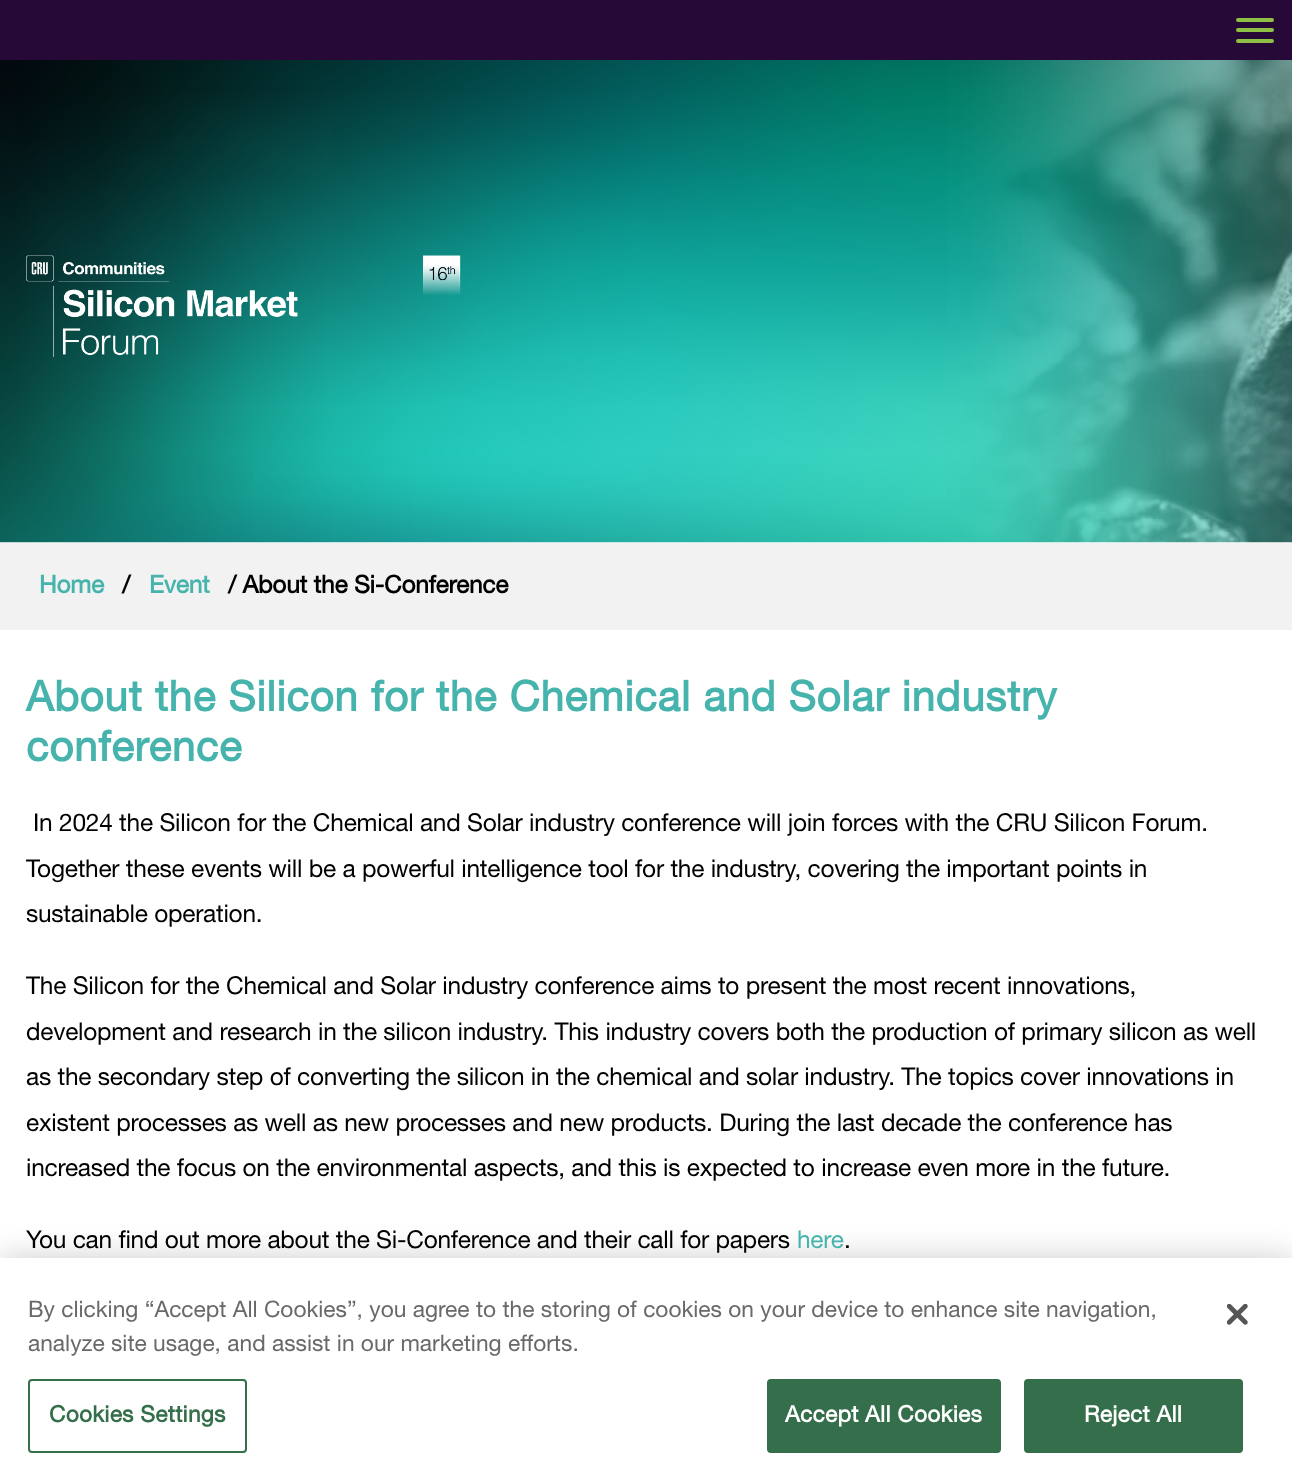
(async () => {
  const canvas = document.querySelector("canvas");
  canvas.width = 1292;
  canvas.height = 1480;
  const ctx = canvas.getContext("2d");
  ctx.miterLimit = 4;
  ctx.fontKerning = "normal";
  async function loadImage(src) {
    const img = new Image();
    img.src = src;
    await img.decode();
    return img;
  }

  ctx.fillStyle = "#ffffff";
  ctx.fillRect(0, 0, 1292, 1480);
  ctx.fillStyle = "#260936";
  ctx.fillRect(0, 0, 1292, 60);
  ctx.fillStyle = "#8dc044";
  ctx.beginPath();
  ctx.roundRect(1236, 18, 38, 4, 2);
  ctx.fill();
  ctx.beginPath();
  ctx.roundRect(1236, 28, 38, 4, 2);
  ctx.fill();
  ctx.beginPath();
  ctx.roundRect(1236, 39, 38, 4, 2);
  ctx.fill();
  ctx.drawImage(await loadImage("img/1.png"), 0, 60, 1292, 483);
  ctx.drawImage(await loadImage("img/2.png"), 26, 255, 435, 102);
  ctx.fillStyle = "#f2f2f2";
  ctx.fillRect(0, 543, 1292, 87);
  ctx.fillStyle = "rgba(0, 0, 0, 0.2)";
  ctx.filter = "blur(16px)";
  ctx.beginPath();
  ctx.rect(0, 1258, 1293, 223);
  ctx.fill();
  ctx.filter = "none";
  ctx.fillStyle = "#ffffff";
  ctx.fillRect(0, 1258, 1292, 222);
  ctx.beginPath();
  ctx.roundRect(29, 1380, 217, 72, 3);
  ctx.strokeStyle = "#346e4a";
  ctx.lineWidth = 2;
  ctx.stroke();
  ctx.fillStyle = "#346e4a";
  ctx.beginPath();
  ctx.roundRect(768, 1380, 232, 72, 3);
  ctx.fill();
  ctx.stroke();
  ctx.beginPath();
  ctx.roundRect(1025, 1380, 217, 72, 3);
  ctx.fill();
  ctx.stroke();
  ctx.drawImage(await loadImage("img/3.png"), 1227, 1304, 21, 21);
  ctx.letterSpacing = "-0.25px";
  ctx.font = "bold 24.5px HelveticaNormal";
  ctx.fillStyle = "#46b4ad";
  ctx.fillText("Home", 39, 593);
  ctx.fillStyle = "#000000";
  ctx.fillText("/", 122, 593);
  ctx.fillStyle = "#46b4ad";
  ctx.fillText("Event", 149, 593);
  ctx.fillStyle = "#000000";
  ctx.fillText("/ About the Si-Conference", 228, 593);
  ctx.letterSpacing = "0.7px";
  ctx.font = "bold 42px HelveticaNormal";
  ctx.fillStyle = "#46b4ad";
  ctx.fillText("About the Silicon for the Chemical and Solar industry", 26, 711);
  ctx.fillText("conference", 26, 761);
  ctx.letterSpacing = "-0.25px";
  ctx.font = "24.5px HelveticaNormal";
  ctx.fillStyle = "#000000";
  for (const [text, x, y] of [
    ["In 2024 the Silicon for the Chemical and Solar industry conference will join forces with the CRU Silicon Forum.", 33, 831],
    ["Together these events will be a powerful intelligence tool for the industry, covering the important points in", 26, 877],
    ["sustainable operation.", 26, 922],
    ["The Silicon for the Chemical and Solar industry conference aims to present the most recent innovations,", 26, 994],
    ["development and research in the silicon industry. This industry covers both the production of primary silicon as well", 26, 1040],
    ["as the secondary step of converting the silicon in the chemical and solar industry. The topics cover innovations in", 26, 1085],
    ["existent processes as well as new processes and new products. During the last decade the conference has", 26, 1131],
    ["increased the focus on the environmental aspects, and this is expected to increase even more in the future.", 26, 1176],
    ["You can find out more about the Si-Conference and their call for papers", 26, 1248],
  ]) {
    ctx.fillText(text, x, y);
  }
  ctx.fillStyle = "#46b4ad";
  ctx.fillText("here", 797, 1248);
  ctx.fillStyle = "#000000";
  ctx.fillText(".", 844, 1248);
  ctx.letterSpacing = "0px";
  ctx.font = "22.75px HelveticaNormal";
  ctx.fillStyle = "#696969";
  ctx.fillText("By clicking “Accept All Cookies”, you agree to the storing of cookies on your device to enhance site navigation,", 28, 1317);
  ctx.fillText("analyze site usage, and assist in our marketing efforts.", 28, 1351);
  ctx.letterSpacing = "0.25px";
  ctx.font = "bold 22.75px HelveticaNormal";
  ctx.fillStyle = "#346e4a";
  ctx.fillText("Cookies Settings", 49, 1422);
  ctx.fillStyle = "#ffffff";
  ctx.fillText("Accept All Cookies", 785, 1422);
  ctx.fillText("Reject All", 1084, 1422);
})();
